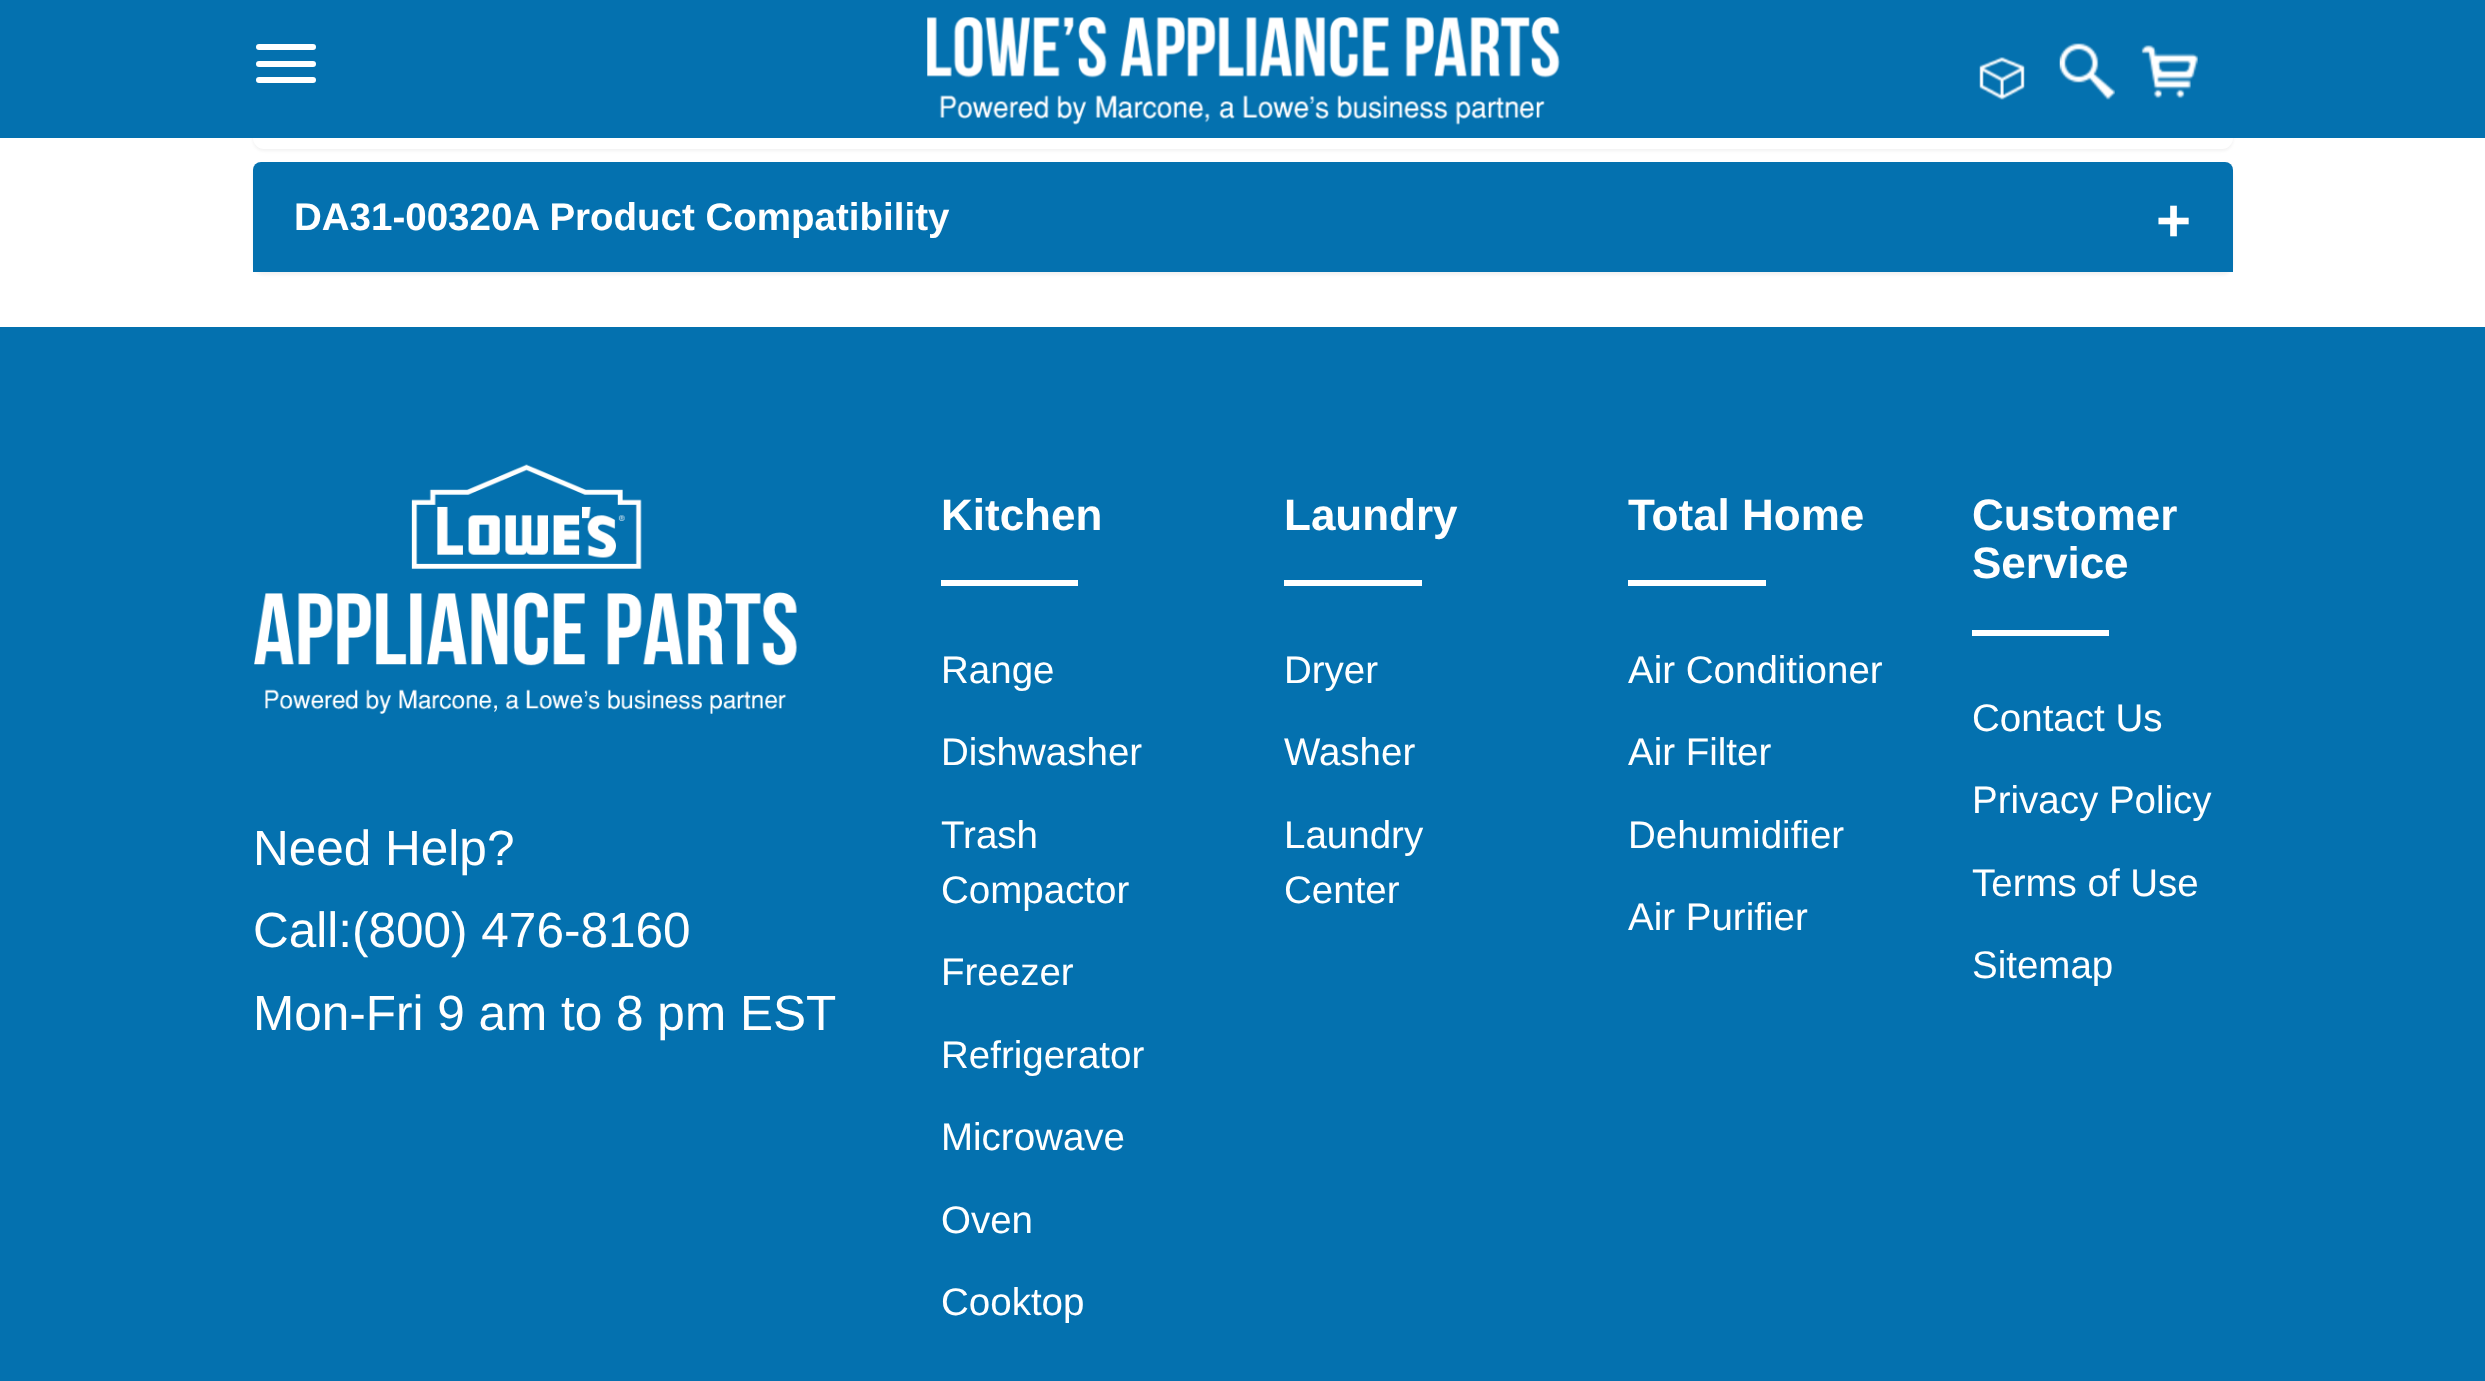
(async () => {
  const canvas = document.querySelector("canvas");
  canvas.width = 2485;
  canvas.height = 1381;
  const ctx = canvas.getContext("2d");
  ctx.miterLimit = 4;
  ctx.fontKerning = "normal";
  async function loadImage(src) {
    const img = new Image();
    img.src = src;
    await img.decode();
    return img;
  }

  ctx.fillStyle = "#ffffff";
  ctx.fillRect(0, 0, 2485, 1381);
  ctx.fillStyle = "rgba(0, 0, 0, 0.05)";
  ctx.filter = "blur(1.5px)";
  ctx.beginPath();
  ctx.roundRect(253, -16, 1980, 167, 11);
  ctx.fill();
  ctx.filter = "none";
  ctx.fillStyle = "#ffffff";
  ctx.beginPath();
  ctx.roundRect(253, -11, 1980, 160, 11);
  ctx.fill();
  ctx.fillStyle = "#0471af";
  ctx.fillRect(0, 0, 2485, 138);
  ctx.fillStyle = "#ffffff";
  ctx.beginPath();
  ctx.roundRect(256, 44, 60, 6, 3);
  ctx.fill();
  ctx.beginPath();
  ctx.roundRect(256, 61, 60, 6, 3);
  ctx.fill();
  ctx.beginPath();
  ctx.roundRect(256, 77, 60, 6, 3);
  ctx.fill();
  ctx.drawImage(await loadImage("img/1.png"), 927, 17, 633, 108);
  ctx.drawImage(await loadImage("img/2.png"), 1979, 57, 46, 43);
  ctx.drawImage(await loadImage("img/3.png"), 2059, 43, 56, 57);
  ctx.drawImage(await loadImage("img/4.png"), 2141, 45, 57, 54);
  ctx.fillStyle = "rgba(0, 0, 0, 0.05)";
  ctx.filter = "blur(1.5px)";
  ctx.beginPath();
  ctx.roundRect(253, 165, 1980, 110, 11);
  ctx.fill();
  ctx.filter = "none";
  ctx.fillStyle = "#0471af";
  ctx.beginPath();
  ctx.roundRect(253, 162, 1980, 110, [8, 8, 0, 0]);
  ctx.fill();
  ctx.fillRect(0, 327, 2485, 1054);
  ctx.drawImage(await loadImage("img/5.png"), 254, 464, 543, 250);
  for (const [x, y, w, h, color] of [
    [941, 580, 137, 6, "#ffffff"],
    [1284, 580, 138, 6, "#ffffff"],
    [1628, 580, 138, 6, "#ffffff"],
    [1972, 630, 137, 6, "#ffffff"],
  ]) {
    ctx.fillStyle = color;
    ctx.fillRect(x, y, w, h);
  }
  ctx.font = "bold 38.5px Liberation Sans";
  ctx.fillText("DA31-00320A Product Compatibility", 294, 230);
  ctx.font = "bold 60px Liberation Sans";
  ctx.fillText("+", 2156, 241);
  ctx.font = "49.5px Liberation Sans";
  for (const [text, x, y] of [
    ["Need Help?", 253, 865],
    ["Call:(800) 476-8160", 253, 947],
    ["Mon-Fri 9 am to 8 pm EST", 253, 1030],
  ]) {
    ctx.fillText(text, x, y);
  }
  ctx.font = "bold 44px Liberation Sans";
  ctx.fillText("Kitchen", 941, 530);
  ctx.font = "38.5px Liberation Sans";
  for (const [text, x, y] of [
    ["Range", 941, 683],
    ["Dishwasher", 941, 765],
    ["Trash", 941, 848],
    ["Compactor", 941, 903],
    ["Freezer", 941, 985],
    ["Refrigerator", 941, 1068],
    ["Microwave", 941, 1150],
    ["Oven", 941, 1233],
    ["Cooktop", 941, 1315],
  ]) {
    ctx.fillText(text, x, y);
  }
  ctx.font = "bold 44px Liberation Sans";
  ctx.fillText("Laundry", 1284, 530);
  ctx.font = "38.5px Liberation Sans";
  for (const [text, x, y] of [
    ["Dryer", 1284, 683],
    ["Washer", 1284, 765],
    ["Laundry", 1284, 848],
    ["Center", 1284, 903],
  ]) {
    ctx.fillText(text, x, y);
  }
  ctx.font = "bold 44px Liberation Sans";
  ctx.fillText("Total Home", 1628, 530);
  ctx.font = "38.5px Liberation Sans";
  for (const [text, x, y] of [
    ["Air Conditioner", 1628, 683],
    ["Air Filter", 1628, 765],
    ["Dehumidifier", 1628, 848],
    ["Air Purifier", 1628, 930],
  ]) {
    ctx.fillText(text, x, y);
  }
  ctx.font = "bold 44px Liberation Sans";
  ctx.fillText("Customer", 1972, 530);
  ctx.fillText("Service", 1972, 578);
  ctx.font = "38.5px Liberation Sans";
  for (const [text, x, y] of [
    ["Contact Us", 1972, 731],
    ["Privacy Policy", 1972, 813],
    ["Terms of Use", 1972, 896],
    ["Sitemap", 1972, 978],
  ]) {
    ctx.fillText(text, x, y);
  }
})();
